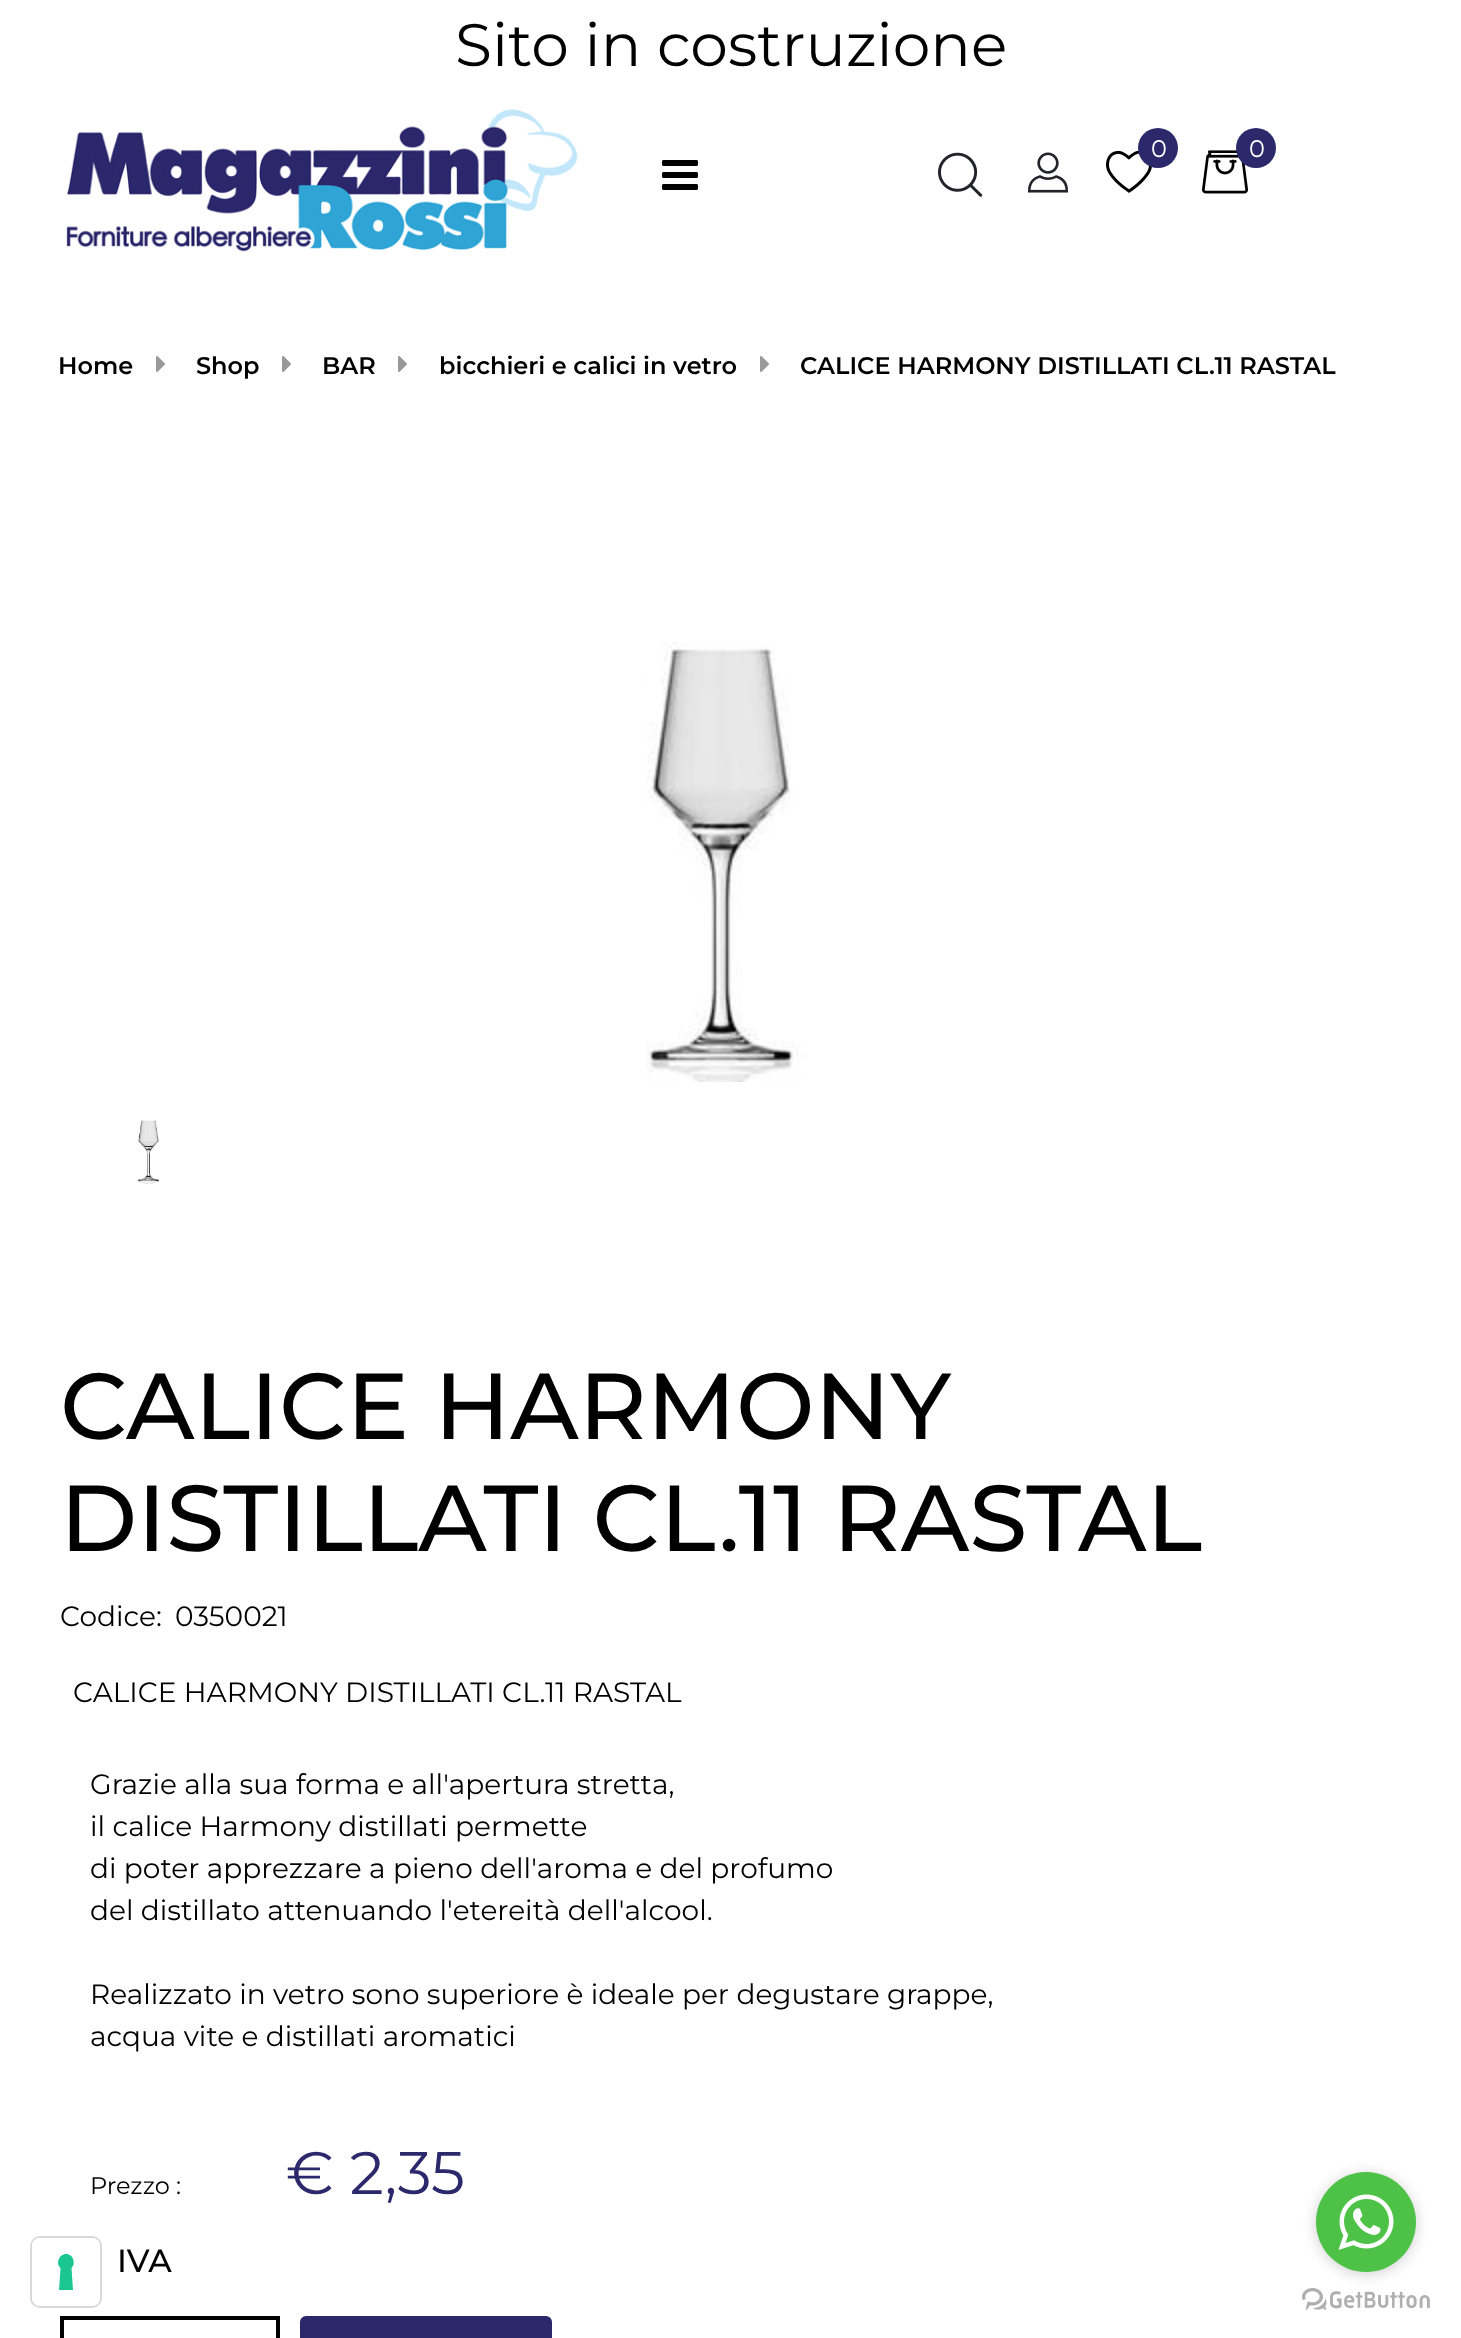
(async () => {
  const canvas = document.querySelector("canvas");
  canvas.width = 1461;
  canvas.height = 2338;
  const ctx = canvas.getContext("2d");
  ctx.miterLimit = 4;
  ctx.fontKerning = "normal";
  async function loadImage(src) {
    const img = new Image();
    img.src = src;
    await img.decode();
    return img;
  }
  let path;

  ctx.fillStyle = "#ffffff";
  ctx.fillRect(0, 0, 1461, 2338);
  ctx.drawImage(await loadImage("img/1.png"), 66, 109, 512, 143);
  ctx.drawImage(await loadImage("img/2.png"), 1106, 150, 46, 43);
  ctx.fillStyle = "#2c286c";
  ctx.beginPath();
  ctx.arc(1158, 148, 20, 0, Math.PI * 2);
  ctx.fill();
  ctx.drawImage(await loadImage("img/3.png"), 1202, 150, 46, 44);
  ctx.beginPath();
  ctx.arc(1256, 148, 20, 0, Math.PI * 2);
  ctx.fill();
  ctx.drawImage(await loadImage("img/4.png"), 938, 152, 45, 45);
  ctx.drawImage(await loadImage("img/5.png"), 1028, 152, 40, 41);
  ctx.drawImage(await loadImage("img/6.png"), 662, 160, 36, 30);
  ctx.drawImage(await loadImage("img/7.png"), 156, 356, 9, 16);
  ctx.drawImage(await loadImage("img/7.png"), 282, 356, 9, 16);
  ctx.drawImage(await loadImage("img/7.png"), 398, 356, 9, 16);
  ctx.drawImage(await loadImage("img/7.png"), 760, 356, 9, 16);
  ctx.drawImage(await loadImage("img/8.png"), 646, 642, 158, 440);
  ctx.drawImage(await loadImage("img/9.png"), 138, 1120, 21, 64);
  for (const [x, y, w, h, color] of [
    [60, 2316, 220, 4, "#000000"],
    [60, 2316, 4, 22, "#000000"],
    [276, 2316, 4, 22, "#000000"],
  ]) {
    ctx.fillStyle = color;
    ctx.fillRect(x, y, w, h);
  }
  ctx.fillStyle = "#2c286c";
  ctx.beginPath();
  ctx.roundRect(300, 2316, 252, 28, 6);
  ctx.fill();
  ctx.drawImage(await loadImage("img/11.png"), 1302, 2288, 128, 22);
  ctx.fillStyle = "rgba(136, 136, 136, 0.4)";
  ctx.filter = "blur(7px)";
  ctx.beginPath();
  ctx.roundRect(1316, 2174, 100, 100, 50);
  ctx.fill();
  ctx.filter = "none";
  ctx.fillStyle = "#4dc247";
  ctx.beginPath();
  ctx.arc(1366, 2222, 50, 0, Math.PI * 2);
  ctx.fill();
  ctx.drawImage(await loadImage("img/10.png"), 1338, 2194, 56, 56);
  ctx.beginPath();
  ctx.roundRect(31, 2237, 70, 70, 9);
  ctx.strokeStyle = "rgba(0, 0, 0, 0.15)";
  ctx.lineWidth = 2;
  ctx.stroke();
  ctx.fillStyle = "#ffffff";
  ctx.beginPath();
  ctx.roundRect(32, 2238, 68, 68, 8);
  ctx.fill();
  ctx.fillStyle = "#1cc691";
  path = new Path2D("M66 2254C73 2254 76.5 2263.5 71.5 2268L73 2290H59L60.5 2268C55.5 2263.5 59 2254 66 2254Z");
  ctx.fill(path, "evenodd");
  ctx.font = "60px Montserrat";
  ctx.fillStyle = "#000000";
  ctx.fillText("Sito in costruzione", 455, 66);
  ctx.font = "24px Montserrat";
  ctx.fillStyle = "#ffffff";
  ctx.fillText("0", 1151, 157);
  ctx.fillText("0", 1249, 157);
  ctx.font = "600 24px Montserrat";
  ctx.fillStyle = "#000000";
  for (const [text, x, y] of [
    ["Home", 58, 374],
    ["Shop", 196, 374],
    ["BAR", 322, 374],
    ["bicchieri e calici in vetro", 439, 374],
    ["CALICE HARMONY DISTILLATI CL.11 RASTAL", 800, 374],
  ]) {
    ctx.fillText(text, x, y);
  }
  ctx.font = "500 93.5px Montserrat";
  ctx.fillText("CALICE HARMONY", 60, 1439);
  ctx.fillText("DISTILLATI CL.11 RASTAL", 60, 1551);
  ctx.font = "28px Montserrat";
  for (const [text, x, y] of [
    ["Codice:", 60, 1626],
    ["0350021", 175, 1626],
    ["CALICE HARMONY DISTILLATI CL.11 RASTAL", 73, 1702],
    ["Grazie alla sua forma e all'apertura stretta,", 90, 1794],
    ["il calice Harmony distillati permette", 90, 1836],
    ["di poter apprezzare a pieno dell'aroma e del profumo", 90, 1878],
    ["del distillato attenuando l'etereità dell'alcool.", 90, 1920],
    ["Realizzato in vetro sono superiore è ideale per degustare grappe,", 90, 2004],
    ["acqua vite e distillati aromatici", 90, 2046],
  ]) {
    ctx.fillText(text, x, y);
  }
  ctx.font = "24px Montserrat";
  ctx.fillText("Prezzo :", 90, 2194);
  ctx.font = "60px Montserrat";
  ctx.fillStyle = "#2c286c";
  ctx.fillText("€ 2,35", 286, 2194);
  ctx.font = "500 32px Montserrat";
  ctx.fillStyle = "#000000";
  ctx.fillText("IVA", 117, 2272);
})();
